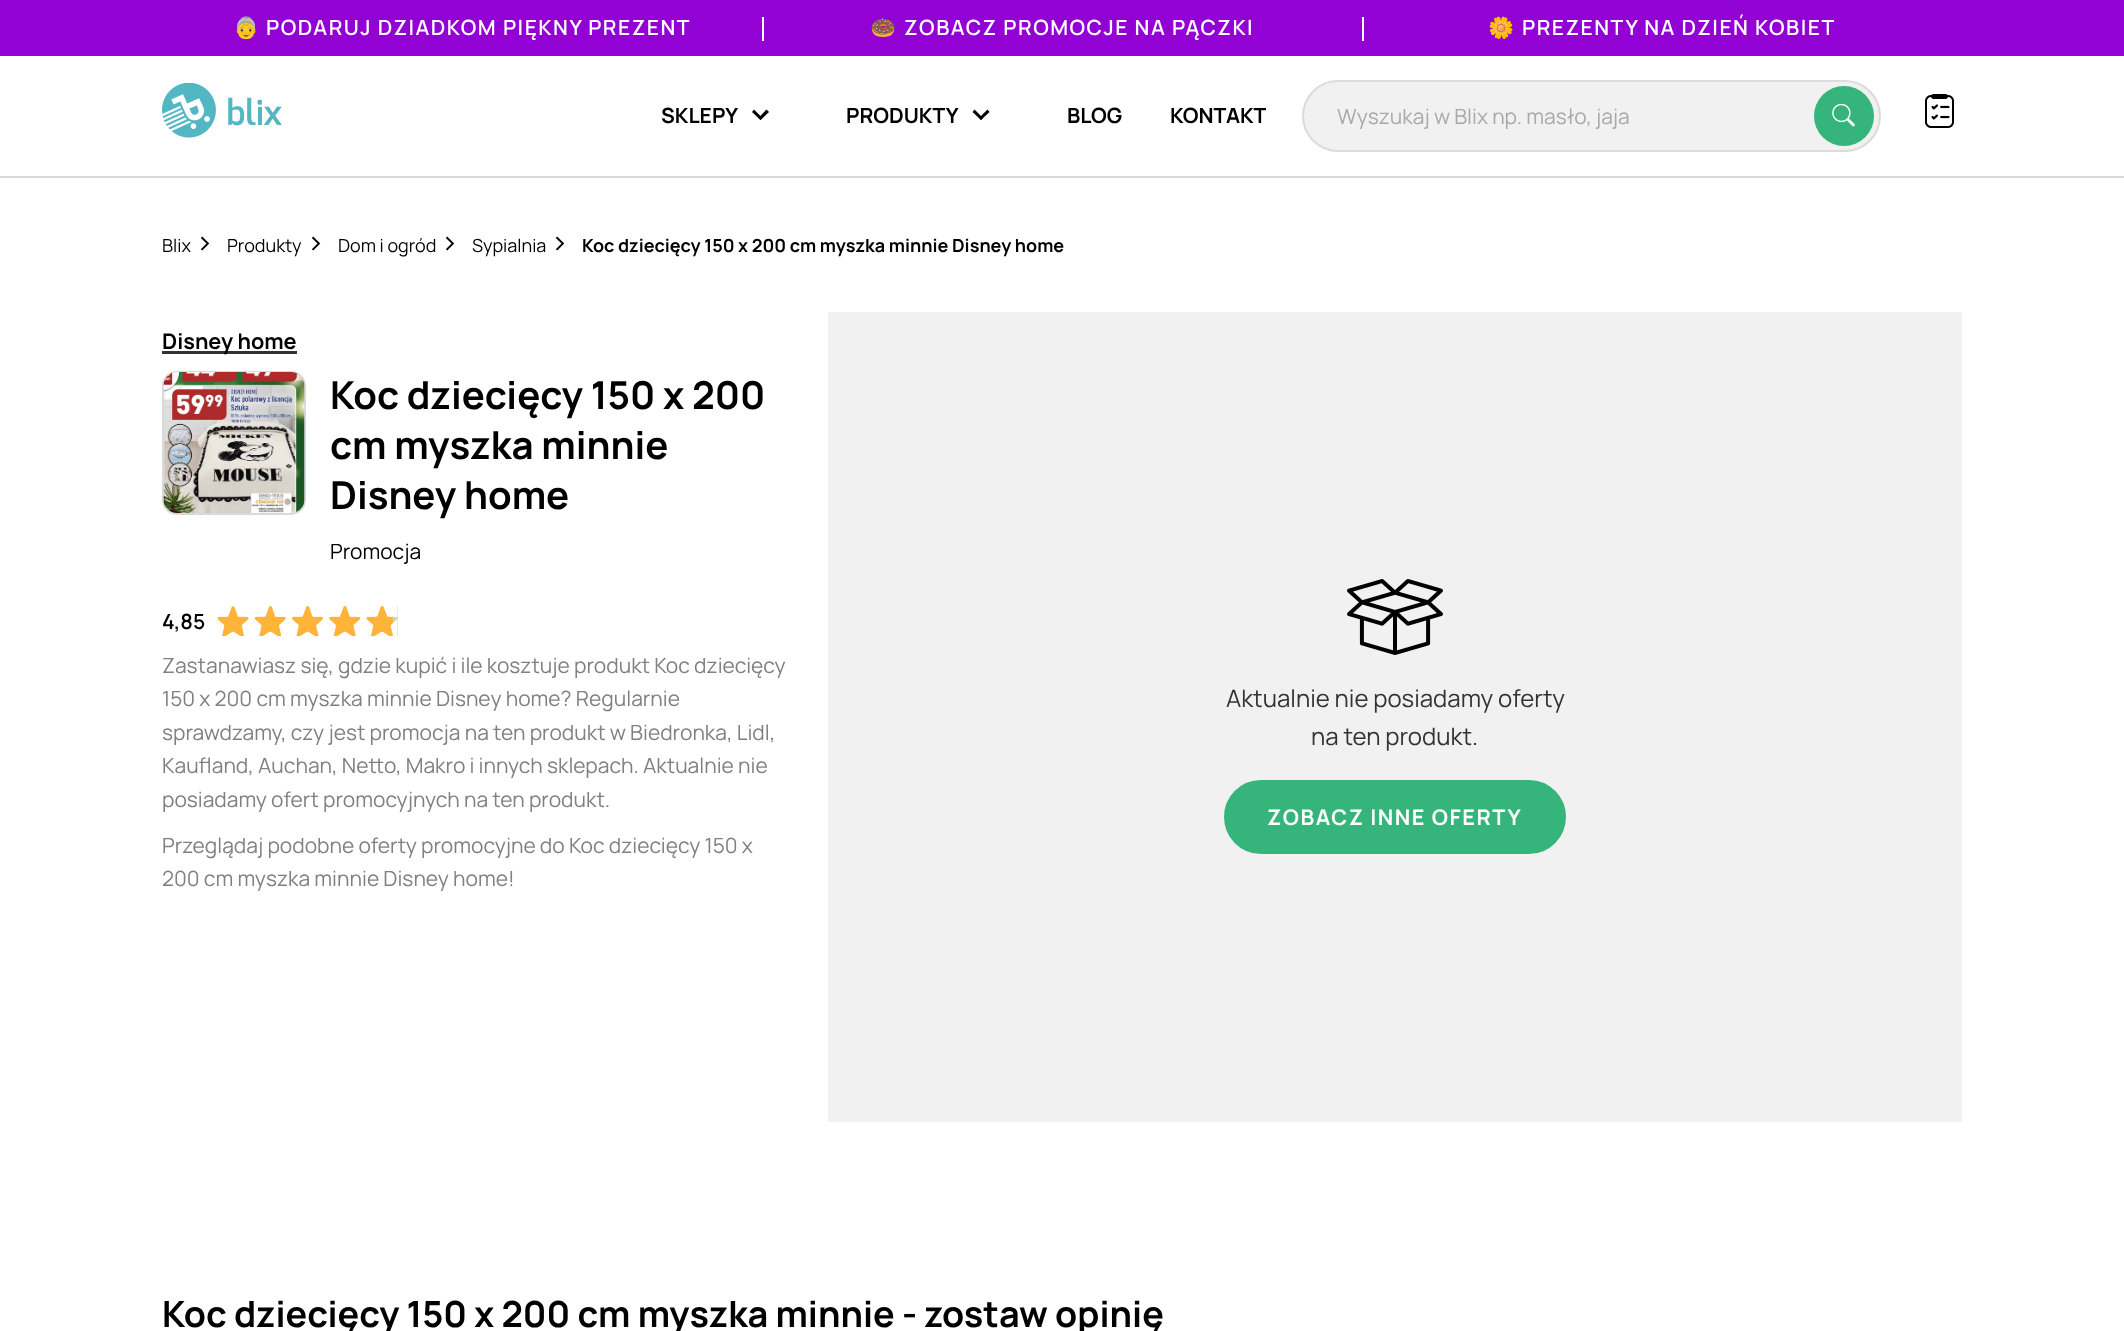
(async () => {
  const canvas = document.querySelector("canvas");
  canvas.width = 2124;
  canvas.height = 1331;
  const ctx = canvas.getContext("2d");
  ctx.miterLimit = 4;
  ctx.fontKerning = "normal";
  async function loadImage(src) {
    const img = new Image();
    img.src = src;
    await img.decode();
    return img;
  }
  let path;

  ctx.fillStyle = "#ffffff";
  ctx.fillRect(0, 0, 2124, 1331);
  for (const [x, y, w, h, color] of [
    [0, 0, 2124, 56, "#9202d4"],
    [762, 17, 2, 24, "#ffffff"],
    [1362, 17, 2, 24, "#ffffff"],
    [0, 176, 2124, 2, "#d9d9d9"],
  ]) {
    ctx.fillStyle = color;
    ctx.fillRect(x, y, w, h);
  }
  ctx.drawImage(await loadImage("img/1.png"), 162, 83, 120, 55);
  ctx.fillStyle = "#000000";
  path = new Path2D("M766.5 109.5L769 112L760.5 120L758.5 118Z");
  ctx.fill(path);
  path = new Path2D("M754 109.5L762.5 118L760.5 120L752 112Z");
  ctx.fill(path);
  path = new Path2D("M987.5 109.5L989.5 112L981 120L979 118Z");
  ctx.fill(path);
  path = new Path2D("M974.5 109.5L983 118L981 120L972.5 112Z");
  ctx.fill(path);
  ctx.fillStyle = "#f1f1f1";
  ctx.beginPath();
  ctx.roundRect(1303, 81, 577, 70, 35);
  ctx.fill();
  ctx.strokeStyle = "#dbdbdb";
  ctx.lineWidth = 2;
  ctx.stroke();
  ctx.fillStyle = "#35b57b";
  ctx.beginPath();
  ctx.arc(1844, 116, 30, 0, Math.PI * 2);
  ctx.fill();
  ctx.drawImage(await loadImage("img/2.png"), 1832, 104, 23, 23);
  ctx.drawImage(await loadImage("img/3.png"), 1925, 94, 29, 34);
  ctx.fillStyle = "#333333";
  ctx.fillRect(162, 351, 135, 3);
  ctx.beginPath();
  ctx.roundRect(163, 372, 142, 142, 14);
  ctx.strokeStyle = "#d9d9d9";
  ctx.stroke();
  ctx.drawImage(await loadImage("img/4.png"), 163, 372, 142, 141);
  ctx.fillStyle = "#d3d3d3";
  ctx.fillRect(393, 606, 5, 30);
  ctx.fillStyle = "#ffb439";
  ctx.fillRect(218, 606, 175, 30);
  ctx.drawImage(await loadImage("img/5.png"), 218, 606, 180, 30);
  ctx.fillStyle = "#f1f1f1";
  ctx.fillRect(828, 312, 1134, 810);
  ctx.drawImage(await loadImage("img/6.png"), 1347, 579, 96, 76);
  ctx.fillStyle = "#35b57b";
  ctx.beginPath();
  ctx.roundRect(1225, 781, 340, 72, 36);
  ctx.fill();
  ctx.strokeStyle = "#35b57b";
  ctx.stroke();
  ctx.letterSpacing = "1.5px";
  ctx.font = "bold 21px Noto Color Emoji";
  ctx.fillStyle = "#ffffff";
  ctx.fillText("👵", 233, 35);
  ctx.font = "600 21px Manrope";
  ctx.fillText("PODARUJ DZIADKOM PIĘKNY PREZENT", 266, 35);
  ctx.font = "bold 21px Noto Color Emoji";
  ctx.fillText("🍩", 870, 35);
  ctx.font = "600 21px Manrope";
  ctx.fillText("ZOBACZ PROMOCJE NA PĄCZKI", 904, 35);
  ctx.font = "bold 21px Noto Color Emoji";
  ctx.fillText("🌼", 1488, 35);
  ctx.font = "600 21px Manrope";
  ctx.fillText("PREZENTY NA DZIEŃ KOBIET", 1522, 35);
  ctx.letterSpacing = "0px";
  ctx.font = "bold 21px Manrope";
  ctx.fillStyle = "#000000";
  for (const [text, x, y] of [
    ["SKLEPY", 661, 123],
    ["PRODUKTY", 846, 123],
    ["BLOG", 1067, 123],
    ["KONTAKT", 1170, 123],
  ]) {
    ctx.fillText(text, x, y);
  }
  ctx.font = "21px Manrope";
  ctx.fillStyle = "#a9a9a9";
  ctx.fillText("Wyszukaj w Blix np. masło, jaja", 1337, 124);
  ctx.font = "18px Manrope";
  ctx.fillStyle = "#000000";
  ctx.fillText("Blix", 162, 252);
  ctx.font = "30px Manrope";
  ctx.fillText("›", 195, 253);
  ctx.font = "18px Manrope";
  ctx.fillText("Produkty", 227, 252);
  ctx.font = "30px Manrope";
  ctx.fillText("›", 306, 253);
  ctx.font = "18px Manrope";
  ctx.fillText("Dom i ogród", 338, 252);
  ctx.font = "30px Manrope";
  ctx.fillText("›", 440, 253);
  ctx.font = "18px Manrope";
  ctx.fillText("Sypialnia", 472, 252);
  ctx.font = "30px Manrope";
  ctx.fillText("›", 550, 253);
  ctx.font = "bold 18px Manrope";
  ctx.fillText("Koc dziecięcy 150 x 200 cm myszka minnie Disney home", 582, 252);
  ctx.font = "bold 21.6px Manrope";
  ctx.fillText("Disney home", 162, 349);
  ctx.font = "bold 38.4px Manrope";
  for (const [text, x, y] of [
    ["Koc dziecięcy 150 x 200", 330, 409],
    ["cm myszka minnie", 330, 459],
    ["Disney home", 330, 509],
  ]) {
    ctx.fillText(text, x, y);
  }
  ctx.font = "21px Manrope";
  ctx.fillText("Promocja", 330, 559);
  ctx.font = "600 21px Manrope";
  ctx.fillText("4,85", 162, 629);
  ctx.font = "21px Manrope";
  ctx.fillStyle = "#808080";
  for (const [text, x, y] of [
    ["Zastanawiasz się, gdzie kupić i ile kosztuje produkt Koc dziecięcy", 162, 673],
    ["150 x 200 cm myszka minnie Disney home? Regularnie", 162, 706],
    ["sprawdzamy, czy jest promocja na ten produkt w Biedronka, Lidl,", 162, 740],
    ["Kaufland, Auchan, Netto, Makro i innych sklepach. Aktualnie nie", 162, 773],
    ["posiadamy ofert promocyjnych na ten produkt.", 162, 807],
    ["Przeglądaj podobne oferty promocyjne do Koc dziecięcy 150 x", 162, 853],
    ["200 cm myszka minnie Disney home!", 162, 886],
  ]) {
    ctx.fillText(text, x, y);
  }
  ctx.font = "24px Manrope";
  ctx.fillStyle = "#333333";
  ctx.fillText("Aktualnie nie posiadamy oferty", 1226, 707);
  ctx.fillText("na ten produkt.", 1311, 745);
  ctx.letterSpacing = "1.5px";
  ctx.font = "bold 21.6px Manrope";
  ctx.fillStyle = "#ffffff";
  ctx.fillText("ZOBACZ INNE OFERTY", 1267, 825);
  ctx.letterSpacing = "0px";
  ctx.font = "bold 36px Manrope";
  ctx.fillStyle = "#000000";
  ctx.fillText("Koc dziecięcy 150 x 200 cm myszka minnie - zostaw opinię", 162, 1327);
})();
